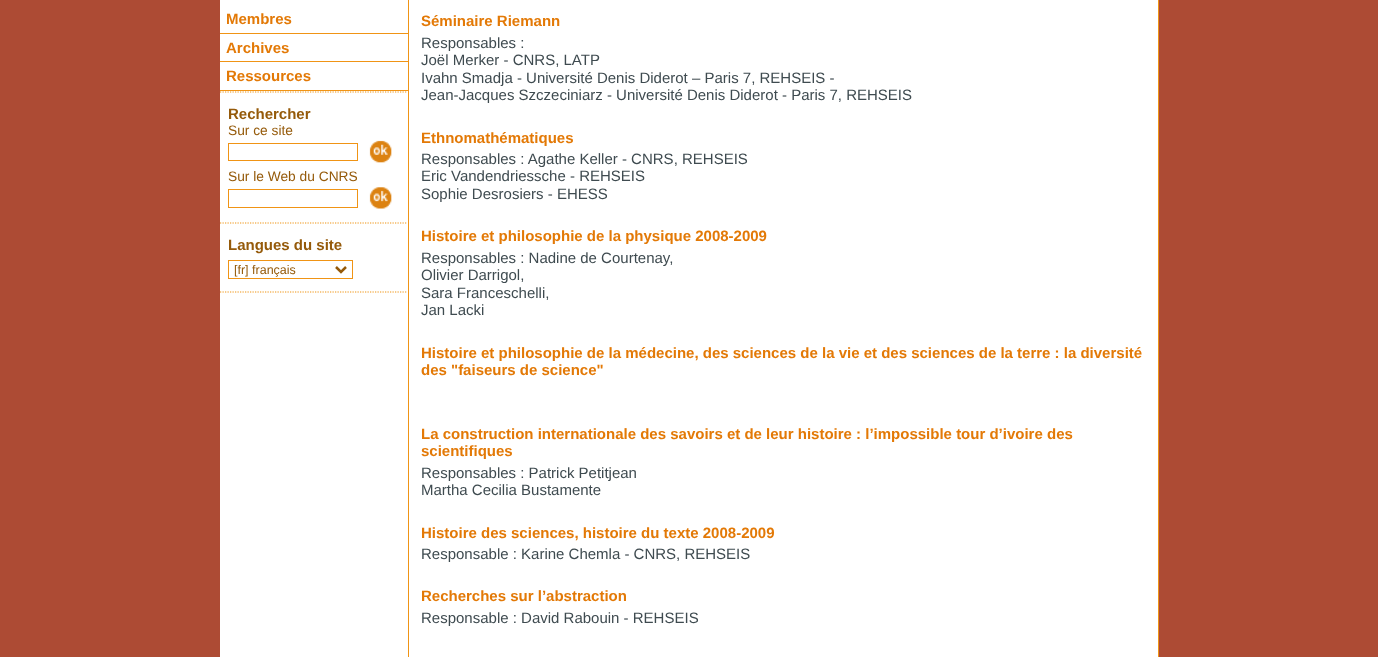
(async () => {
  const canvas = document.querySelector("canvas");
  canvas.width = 1378;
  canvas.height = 657;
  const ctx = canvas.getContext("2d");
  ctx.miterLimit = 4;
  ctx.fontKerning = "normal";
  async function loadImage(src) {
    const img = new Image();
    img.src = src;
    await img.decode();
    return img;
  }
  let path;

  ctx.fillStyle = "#ad4b34";
  ctx.fillRect(0, 0, 1378, 657);
  for (const [x, y, w, h, color] of [
    [220, 0, 938, 657, "#ffffff"],
    [1158, 0, 1, 657, "#f09415"],
    [220, 33, 188, 1, "#f09415"],
    [220, 61, 188, 1, "#f09415"],
    [220, 90, 188, 1, "#f09415"],
  ]) {
    ctx.fillStyle = color;
    ctx.fillRect(x, y, w, h);
  }
  path = new Path2D("M220 92H407.5");
  ctx.strokeStyle = "#f09415";
  ctx.lineWidth = 1.2;
  ctx.setLineDash([1.25, 1.25]);
  ctx.stroke(path);
  path = new Path2D("M220 223H407.5");
  ctx.stroke(path);
  ctx.lineWidth = 1;
  ctx.setLineDash([]);
  ctx.strokeRect(228.5, 143.5, 129, 17);
  ctx.drawImage(await loadImage("img/1.png"), 369, 140, 23, 23);
  ctx.strokeRect(228.5, 189.5, 129, 18);
  ctx.drawImage(await loadImage("img/2.png"), 369, 187, 23, 22);
  path = new Path2D("M220 292H407.5");
  ctx.lineWidth = 1.2;
  ctx.setLineDash([1.25, 1.25]);
  ctx.stroke(path);
  ctx.lineWidth = 1;
  ctx.setLineDash([]);
  ctx.strokeRect(228.5, 260.5, 124, 18);
  path = new Path2D("M336 267L341 272L346 267");
  ctx.strokeStyle = "#955a0a";
  ctx.lineWidth = 2.5;
  ctx.stroke(path);
  ctx.fillRect(408, 0, 1, 657);
  ctx.font = "bold 15px Liberation Sans";
  ctx.fillStyle = "#e37906";
  for (const [text, x, y] of [
    ["Membres", 226, 24],
    ["Archives", 226, 53],
    ["Ressources", 226, 81],
  ]) {
    ctx.fillText(text, x, y);
  }
  ctx.fillStyle = "#955a0a";
  ctx.fillText("Rechercher", 228, 119);
  ctx.font = "13.75px Liberation Sans";
  ctx.fillText("Sur ce site", 228, 135);
  ctx.fillText("Sur le Web du CNRS", 228, 181);
  ctx.font = "bold 15px Liberation Sans";
  ctx.fillText("Langues du site", 228, 250);
  ctx.font = "12.5px Liberation Sans";
  ctx.fillText("[fr] français", 234, 274);
  ctx.font = "bold 15px Liberation Sans";
  ctx.fillStyle = "#e37906";
  ctx.fillText("Séminaire Riemann", 421, 26);
  ctx.font = "15px Liberation Sans";
  ctx.fillStyle = "#3f4b50";
  for (const [text, x, y] of [
    ["Responsables :", 421, 48],
    ["Joël Merker - CNRS, LATP", 421, 65],
    ["Ivahn Smadja - Université Denis Diderot – Paris 7, REHSEIS -", 421, 83],
    ["Jean-Jacques Szczeciniarz - Université Denis Diderot - Paris 7, REHSEIS", 421, 100],
  ]) {
    ctx.fillText(text, x, y);
  }
  ctx.font = "bold 15px Liberation Sans";
  ctx.fillStyle = "#e37906";
  ctx.fillText("Ethnomathématiques", 421, 143);
  ctx.font = "15px Liberation Sans";
  ctx.fillStyle = "#3f4b50";
  for (const [text, x, y] of [
    ["Responsables : Agathe Keller - CNRS, REHSEIS", 421, 164],
    ["Eric Vandendriessche - REHSEIS", 421, 181],
    ["Sophie Desrosiers - EHESS", 421, 199],
  ]) {
    ctx.fillText(text, x, y);
  }
  ctx.font = "bold 15px Liberation Sans";
  ctx.fillStyle = "#e37906";
  ctx.fillText("Histoire et philosophie de la physique 2008-2009", 421, 241);
  ctx.font = "15px Liberation Sans";
  ctx.fillStyle = "#3f4b50";
  for (const [text, x, y] of [
    ["Responsables : Nadine de Courtenay,", 421, 263],
    ["Olivier Darrigol,", 421, 280],
    ["Sara Franceschelli,", 421, 298],
    ["Jan Lacki", 421, 315],
  ]) {
    ctx.fillText(text, x, y);
  }
  ctx.font = "bold 15px Liberation Sans";
  ctx.fillStyle = "#e37906";
  for (const [text, x, y] of [
    ["Histoire et philosophie de la médecine, des sciences de la vie et des sciences de la terre : la diversité", 421, 358],
    ["des \"faiseurs de science\"", 421, 375],
    ["La construction internationale des savoirs et de leur histoire : l’impossible tour d’ivoire des", 421, 439],
    ["scientifiques", 421, 456],
  ]) {
    ctx.fillText(text, x, y);
  }
  ctx.font = "15px Liberation Sans";
  ctx.fillStyle = "#3f4b50";
  ctx.fillText("Responsables : Patrick Petitjean", 421, 478);
  ctx.fillText("Martha Cecilia Bustamente", 421, 495);
  ctx.font = "bold 15px Liberation Sans";
  ctx.fillStyle = "#e37906";
  ctx.fillText("Histoire des sciences, histoire du texte 2008-2009", 421, 538);
  ctx.font = "15px Liberation Sans";
  ctx.fillStyle = "#3f4b50";
  ctx.fillText("Responsable : Karine Chemla - CNRS, REHSEIS", 421, 559);
  ctx.font = "bold 15px Liberation Sans";
  ctx.fillStyle = "#e37906";
  ctx.fillText("Recherches sur l’abstraction", 421, 601);
  ctx.font = "15px Liberation Sans";
  ctx.fillStyle = "#3f4b50";
  ctx.fillText("Responsable : David Rabouin - REHSEIS", 421, 623);
})();
